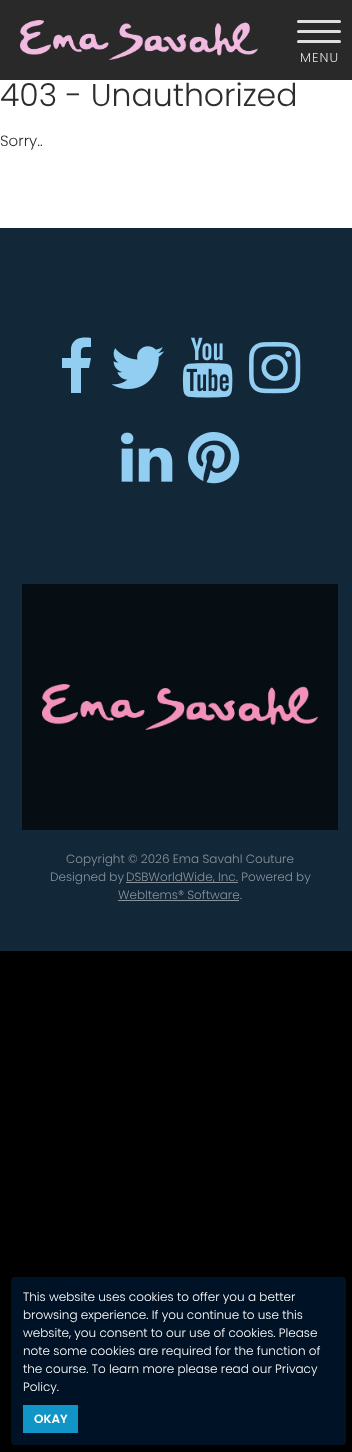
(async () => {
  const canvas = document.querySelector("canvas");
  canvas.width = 352;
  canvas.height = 1452;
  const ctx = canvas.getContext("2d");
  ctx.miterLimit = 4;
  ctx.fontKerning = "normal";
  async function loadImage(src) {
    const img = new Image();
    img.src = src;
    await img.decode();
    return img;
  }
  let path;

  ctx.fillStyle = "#000000";
  ctx.fillRect(0, 0, 352, 1452);
  ctx.fillStyle = "#ffffff";
  ctx.fillRect(0, 80, 352, 148);
  ctx.fillStyle = "#292929";
  ctx.fillRect(0, 0, 352, 80);
  ctx.drawImage(await loadImage("img/1.png"), 20, 20, 238, 40);
  ctx.fillStyle = "#dfdfdf";
  ctx.beginPath();
  ctx.roundRect(297, 20, 44, 3, 1.5);
  ctx.fill();
  ctx.beginPath();
  ctx.roundRect(297, 30, 44, 3, 1.5);
  ctx.fill();
  ctx.beginPath();
  ctx.roundRect(297, 40, 44, 3, 1.5);
  ctx.fill();
  ctx.fillStyle = "#001326";
  ctx.beginPath();
  ctx.roundRect(11, 1277, 335, 168, 4);
  ctx.fill();
  ctx.fillStyle = "#1194c6";
  ctx.fillRect(23, 1405, 55, 28);
  ctx.fillStyle = "#122738";
  ctx.fillRect(0, 228, 352, 723);
  ctx.fillStyle = "#91cef2";
  path = new Path2D("M91 338V347C80 347 81 347 81 358H91L89 368H81V393H71V368H62V358H71V348C73 337 83 337 91 338Z");
  ctx.fill(path);
  ctx.drawImage(await loadImage("img/2.png"), 111, 346, 53, 43);
  ctx.drawImage(await loadImage("img/3.png"), 182, 337, 51, 61);
  ctx.drawImage(await loadImage("img/4.png"), 249, 342, 52, 52);
  ctx.drawImage(await loadImage("img/5.png"), 121, 432, 52, 50);
  ctx.drawImage(await loadImage("img/6.png"), 188, 432, 52, 52);
  ctx.fillStyle = "#060e14";
  ctx.fillRect(22, 584, 316, 246);
  ctx.drawImage(await loadImage("img/7.png"), 42, 684, 276, 46);
  ctx.fillStyle = "#89939c";
  ctx.fillRect(126, 882, 112, 1);
  ctx.fillRect(118, 900, 121, 1);
  ctx.letterSpacing = "1px";
  ctx.font = "300 13px Poppins";
  ctx.fillStyle = "#dfdfdf";
  ctx.fillText("MENU", 300, 62);
  ctx.letterSpacing = "0px";
  ctx.font = "300 31.5px Poppins";
  ctx.fillStyle = "#2d2d2d";
  ctx.fillText("403 - Unauthorized", 0, 106);
  ctx.font = "300 15px Poppins";
  ctx.fillText("Sorry..", 0, 146);
  ctx.font = "300 12px Poppins";
  ctx.fillStyle = "#ffffff";
  for (const [text, x, y] of [
    ["This website uses cookies to offer you a better", 23, 1301],
    ["browsing experience. If you continue to use this", 23, 1319],
    ["website, you consent to our use of cookies. Please", 23, 1337],
    ["note some cookies are required for the function of", 23, 1355],
    ["the course. To learn more please read our Privacy", 23, 1373],
    ["Policy.", 23, 1391],
  ]) {
    ctx.fillText(text, x, y);
  }
  ctx.font = "600 12px Poppins";
  ctx.fillText("OKAY", 34, 1423);
  ctx.font = "300 12px Poppins";
  ctx.fillStyle = "#89939c";
  for (const [text, x, y] of [
    ["Copyright © 2026 Ema Savahl Couture", 66, 863],
    ["Designed by", 50, 881],
    ["DSBWorldWide, Inc. Powered by", 126, 881],
    ["WebItems® Software.", 118, 899],
  ]) {
    ctx.fillText(text, x, y);
  }
})();
